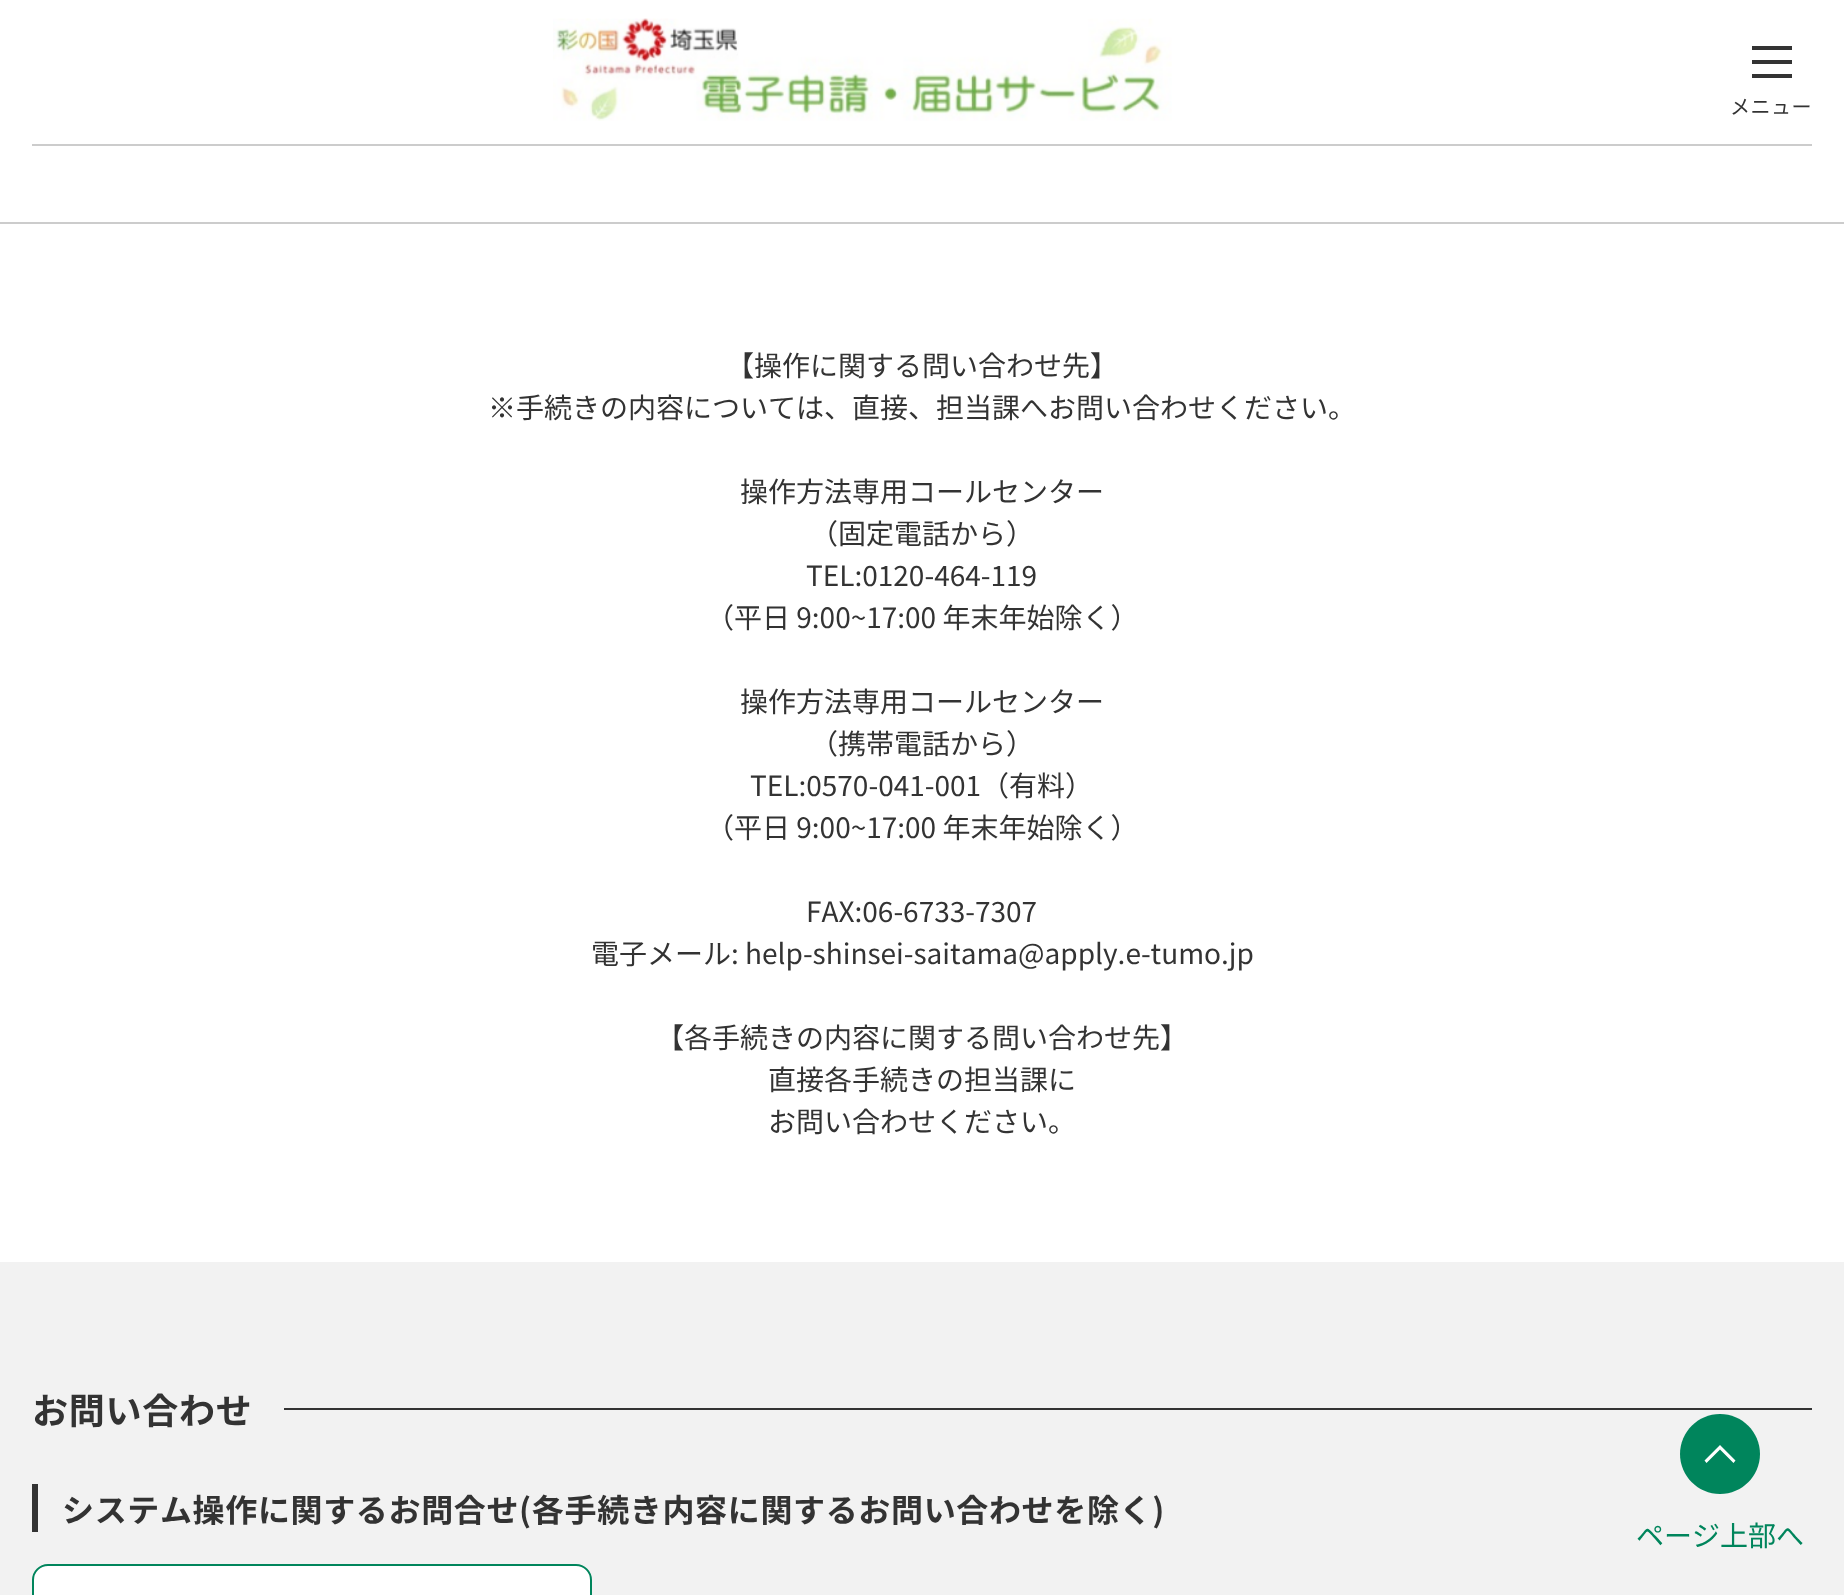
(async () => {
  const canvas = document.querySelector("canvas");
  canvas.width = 1844;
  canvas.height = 1595;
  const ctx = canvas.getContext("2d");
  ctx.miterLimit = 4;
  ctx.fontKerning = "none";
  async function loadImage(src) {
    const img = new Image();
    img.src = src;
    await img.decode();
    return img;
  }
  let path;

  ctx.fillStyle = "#ffffff";
  ctx.fillRect(0, 0, 1844, 1595);
  ctx.drawImage(await loadImage("img/1.png"), 553, 18, 619, 103);
  for (const [x, y, w, h, color] of [
    [1752, 60, 40, 4, "#333333"],
    [1752, 46, 40, 4, "#333333"],
    [1752, 74, 40, 4, "#333333"],
    [32, 144, 1780, 2, "#cccccc"],
    [0, 1262, 1844, 333, "#f2f2f2"],
    [0, 222, 1844, 2, "#cccccc"],
    [284, 1408, 1528, 2, "#333333"],
    [32, 1484, 6, 48, "#333333"],
  ]) {
    ctx.fillStyle = color;
    ctx.fillRect(x, y, w, h);
  }
  ctx.fillStyle = "#ffffff";
  ctx.beginPath();
  ctx.roundRect(33, 1565, 558, 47, 15);
  ctx.fill();
  ctx.strokeStyle = "#00855c";
  ctx.lineWidth = 2;
  ctx.stroke();
  ctx.fillStyle = "#00855c";
  path = new Path2D("M1720 1494C1698 1494 1680 1476 1680 1454C1680 1432 1698 1414 1720 1414C1742 1414 1760 1432 1760 1454C1760 1476 1742 1494 1720 1494Z");
  ctx.fill(path);
  ctx.fillStyle = "#ffffff";
  path = new Path2D("M1706.5 1463L1720 1449.5L1733.5 1463L1735.5 1460.5L1720 1445L1704.5 1460.5Z");
  ctx.fill(path);
  ctx.letterSpacing = "0.5px";
  ctx.font = "20px Noto Sans JP";
  ctx.fillStyle = "#333333";
  ctx.fillText("メニュー", 1730, 114);
  ctx.letterSpacing = "0px";
  ctx.font = "28px Noto Sans JP";
  for (const [text, x, y] of [
    ["【操作に関する問い合わせ先】", 726, 376],
    ["※手続きの内容については、直接、担当課へお問い合わせください。", 488, 418],
    ["操作方法専用コールセンター", 740, 502],
    ["（固定電話から）", 810, 544],
    ["TEL:0120-464-119", 806, 586],
    ["（平日 9:00~17:00 年末年始除く）", 706, 628],
    ["操作方法専用コールセンター", 740, 712],
    ["（携帯電話から）", 810, 754],
    ["TEL:0570-041-001（有料）", 750, 796],
    ["（平日 9:00~17:00 年末年始除く）", 706, 838],
    ["FAX:06-6733-7307", 806, 922],
    ["電子メール: help-shinsei-saitama@apply.e-tumo.jp", 591, 964],
    ["【各手続きの内容に関する問い合わせ先】", 656, 1048],
    ["直接各手続きの担当課に", 768, 1090],
    ["お問い合わせください。", 768, 1132],
  ]) {
    ctx.fillText(text, x, y);
  }
  ctx.letterSpacing = "0.75px";
  ctx.font = "bold 36px Noto Sans JP";
  ctx.fillText("お問い合わせ", 32, 1424);
  ctx.letterSpacing = "0.65px";
  ctx.font = "bold 32px Noto Sans JP";
  ctx.fillText("システム操作に関するお問合せ(各手続き内容に関するお問い合わせを除く)", 62, 1522);
  ctx.letterSpacing = "0px";
  ctx.font = "28px Noto Sans JP";
  ctx.fillStyle = "#00855c";
  ctx.fillText("ページ上部へ", 1636, 1546);
})();
